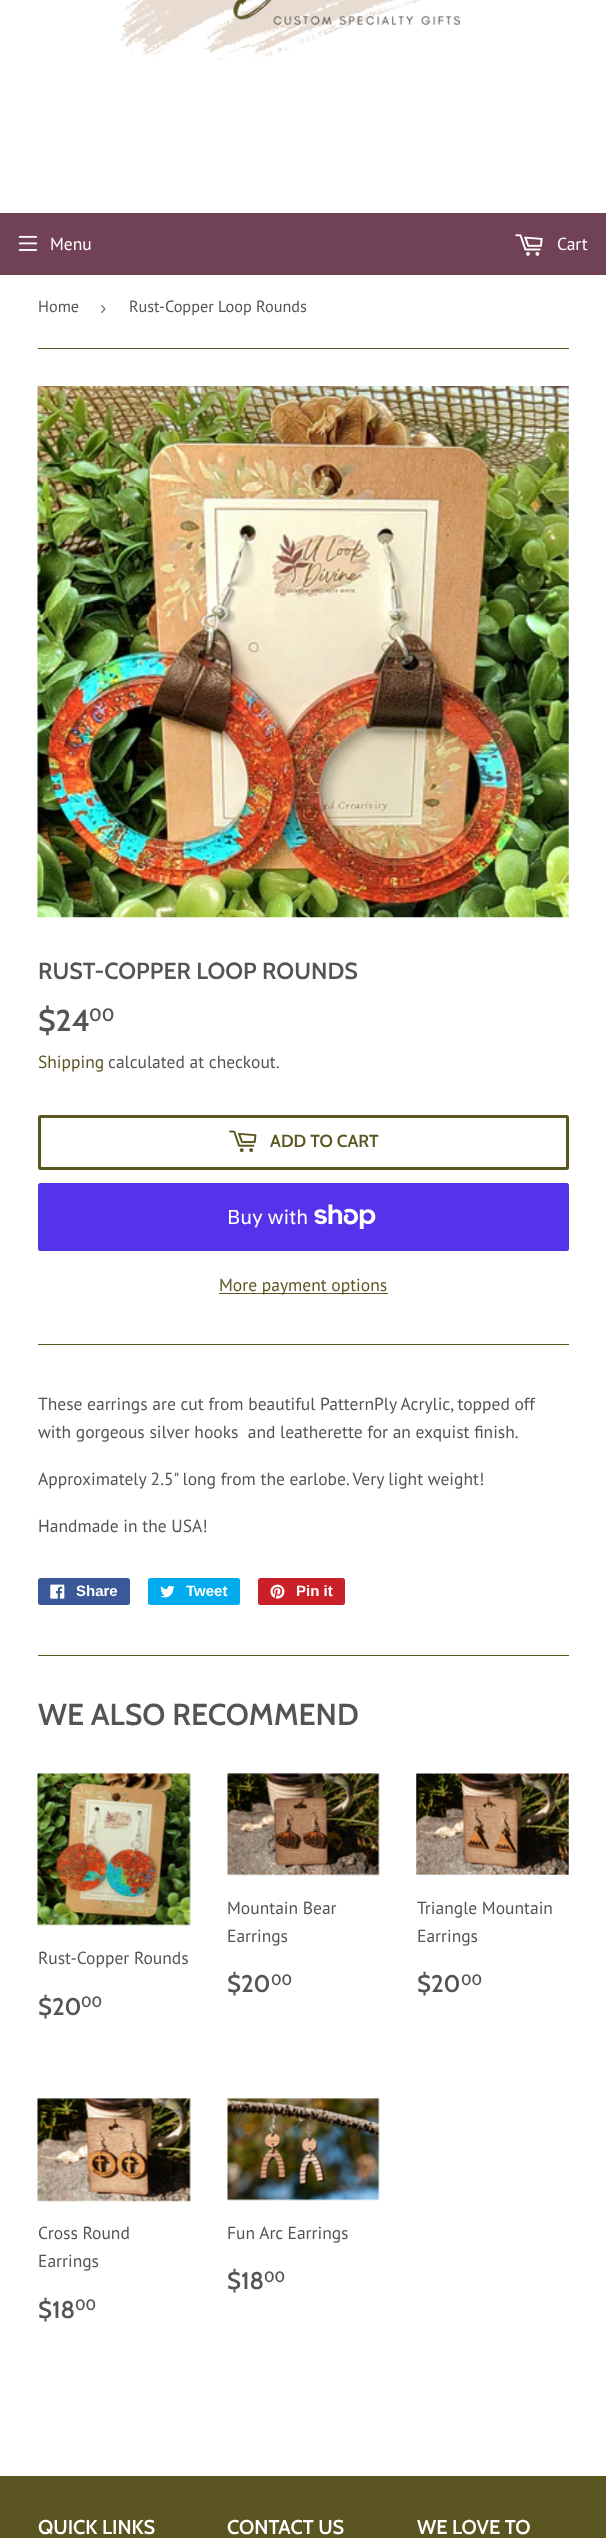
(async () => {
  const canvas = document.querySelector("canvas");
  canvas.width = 606;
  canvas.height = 2538;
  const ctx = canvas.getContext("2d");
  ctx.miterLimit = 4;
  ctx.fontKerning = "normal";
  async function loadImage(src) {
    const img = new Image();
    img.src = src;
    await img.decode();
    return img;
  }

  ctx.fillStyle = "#ffffff";
  ctx.fillRect(0, 0, 606, 2538);
  ctx.drawImage(await loadImage("img/1.png"), 120, 0, 341, 63);
  ctx.fillStyle = "#714255";
  ctx.fillRect(0, 213, 606, 62);
  ctx.drawImage(await loadImage("img/2.png"), 18, 235, 20, 16);
  ctx.drawImage(await loadImage("img/3.png"), 515, 234, 28, 22);
  ctx.fillStyle = "#5b5521";
  ctx.fillRect(38, 348, 531, 1);
  ctx.drawImage(await loadImage("img/4.png"), 37, 386, 532, 532);
  ctx.beginPath();
  ctx.roundRect(39.5, 1116.5, 528, 52, 1);
  ctx.strokeStyle = "#5b5521";
  ctx.lineWidth = 3;
  ctx.stroke();
  ctx.drawImage(await loadImage("img/5.png"), 229, 1130, 28, 23);
  ctx.fillStyle = "#5433eb";
  ctx.beginPath();
  ctx.roundRect(38, 1183, 531, 68, 2.5);
  ctx.fill();
  ctx.drawImage(await loadImage("img/6.png"), 314, 1204, 62, 25);
  ctx.fillStyle = "#5b5521";
  ctx.fillRect(219, 1293, 169, 1);
  ctx.fillRect(38, 1344, 531, 1);
  ctx.fillStyle = "#3b5998";
  ctx.beginPath();
  ctx.roundRect(38, 1578, 92, 27, 2.5);
  ctx.fill();
  ctx.drawImage(await loadImage("img/7.png"), 50, 1584, 15, 15);
  ctx.fillStyle = "#00aced";
  ctx.beginPath();
  ctx.roundRect(148, 1578, 92, 27, 2.5);
  ctx.fill();
  ctx.drawImage(await loadImage("img/8.png"), 160, 1585, 15, 13);
  ctx.fillStyle = "#cb2027";
  ctx.beginPath();
  ctx.roundRect(258, 1578, 87, 27, 2.5);
  ctx.fill();
  ctx.drawImage(await loadImage("img/9.png"), 270, 1584, 15, 15);
  ctx.fillStyle = "#5b5521";
  ctx.fillRect(38, 1655, 531, 1);
  ctx.drawImage(await loadImage("img/10.png"), 37, 1773, 154, 153);
  ctx.drawImage(await loadImage("img/11.png"), 227, 1773, 153, 103);
  ctx.drawImage(await loadImage("img/12.png"), 416, 1773, 153, 102);
  ctx.drawImage(await loadImage("img/13.png"), 37, 2098, 154, 104);
  ctx.drawImage(await loadImage("img/14.png"), 227, 2098, 153, 103);
  ctx.fillRect(0, 2476, 606, 62);
  ctx.font = "17.5px PT Sans";
  ctx.fillStyle = "#ffffff";
  ctx.fillText("Menu", 50, 250);
  ctx.fillText("Cart", 557, 250);
  ctx.font = "16.25px PT Sans";
  ctx.fillStyle = "#545454";
  ctx.fillText("Home", 38, 312);
  ctx.font = "19px Liberation Sans";
  ctx.fillStyle = "#767676";
  ctx.fillText("›", 100, 314);
  ctx.font = "16.25px PT Sans";
  ctx.fillStyle = "#545454";
  ctx.fillText("Rust-Copper Loop Rounds", 129, 312);
  ctx.font = "600 23.3px Cabin";
  ctx.fillText("RUST-COPPER LOOP ROUNDS", 38, 979);
  ctx.font = "600 30.25px Cabin";
  ctx.fillText("$24", 38, 1031);
  ctx.font = "600 18px Cabin";
  ctx.fillText("00", 89, 1021);
  ctx.font = "17.5px PT Sans";
  ctx.fillStyle = "#5b5521";
  ctx.fillText("Shipping", 38, 1068);
  ctx.fillStyle = "#545454";
  ctx.fillText("calculated at checkout.", 108, 1068);
  ctx.font = "600 17.5px Cabin";
  ctx.fillStyle = "#5b5521";
  ctx.fillText("ADD TO CART", 270, 1147);
  ctx.font = "20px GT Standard";
  ctx.fillStyle = "#ffffff";
  ctx.fillText("Buy with", 227, 1224);
  ctx.font = "17.5px PT Sans";
  ctx.fillStyle = "#5b5521";
  ctx.fillText("More payment options", 219, 1291);
  ctx.fillStyle = "#545454";
  for (const [text, x, y] of [
    ["These earrings are cut from beautiful PatternPly Acrylic, topped off", 38, 1410],
    ["with gorgeous silver hooks  and leatherette for an exquist finish.", 38, 1438],
    ["Approximately 2.5\" long from the earlobe. Very light weight!", 38, 1485],
    ["Handmade in the USA!", 38, 1532],
  ]) {
    ctx.fillText(text, x, y);
  }
  ctx.font = "bold 15px Liberation Sans";
  ctx.fillStyle = "#ffffff";
  for (const [text, x, y] of [
    ["Share", 76, 1596],
    ["Tweet", 186, 1596],
    ["Pin it", 296, 1596],
  ]) {
    ctx.fillText(text, x, y);
  }
  ctx.font = "600 30.25px Cabin";
  ctx.fillStyle = "#545454";
  ctx.fillText("WE ALSO RECOMMEND", 38, 1725);
  ctx.font = "17.5px PT Sans";
  ctx.fillText("Rust-Copper Rounds", 38, 1964);
  ctx.font = "600 24px Cabin";
  ctx.fillText("$20", 38, 2015);
  ctx.font = "600 15px Cabin";
  ctx.fillText("00", 81, 2007);
  ctx.font = "17.5px PT Sans";
  ctx.fillText("Mountain Bear", 227, 1914);
  ctx.fillText("Earrings", 227, 1942);
  ctx.font = "600 24px Cabin";
  ctx.fillText("$20", 227, 1992);
  ctx.font = "600 15px Cabin";
  ctx.fillText("00", 271, 1985);
  ctx.font = "17.5px PT Sans";
  ctx.fillText("Triangle Mountain", 417, 1914);
  ctx.fillText("Earrings", 417, 1942);
  ctx.font = "600 24px Cabin";
  ctx.fillText("$20", 417, 1992);
  ctx.font = "600 15px Cabin";
  ctx.fillText("00", 461, 1985);
  ctx.font = "17.5px PT Sans";
  ctx.fillText("Cross Round", 38, 2239);
  ctx.fillText("Earrings", 38, 2267);
  ctx.font = "600 24px Cabin";
  ctx.fillText("$18", 38, 2318);
  ctx.font = "600 15px Cabin";
  ctx.fillText("00", 75, 2310);
  ctx.font = "17.5px PT Sans";
  ctx.fillText("Fun Arc Earrings", 227, 2239);
  ctx.font = "600 24px Cabin";
  ctx.fillText("$18", 227, 2289);
  ctx.font = "600 15px Cabin";
  ctx.fillText("00", 264, 2282);
  ctx.font = "600 20px Cabin";
  ctx.fillStyle = "#ffffff";
  for (const [text, x, y] of [
    ["QUICK LINKS", 38, 2534],
    ["CONTACT US", 227, 2534],
    ["WE LOVE TO", 417, 2534],
  ]) {
    ctx.fillText(text, x, y);
  }
})();
